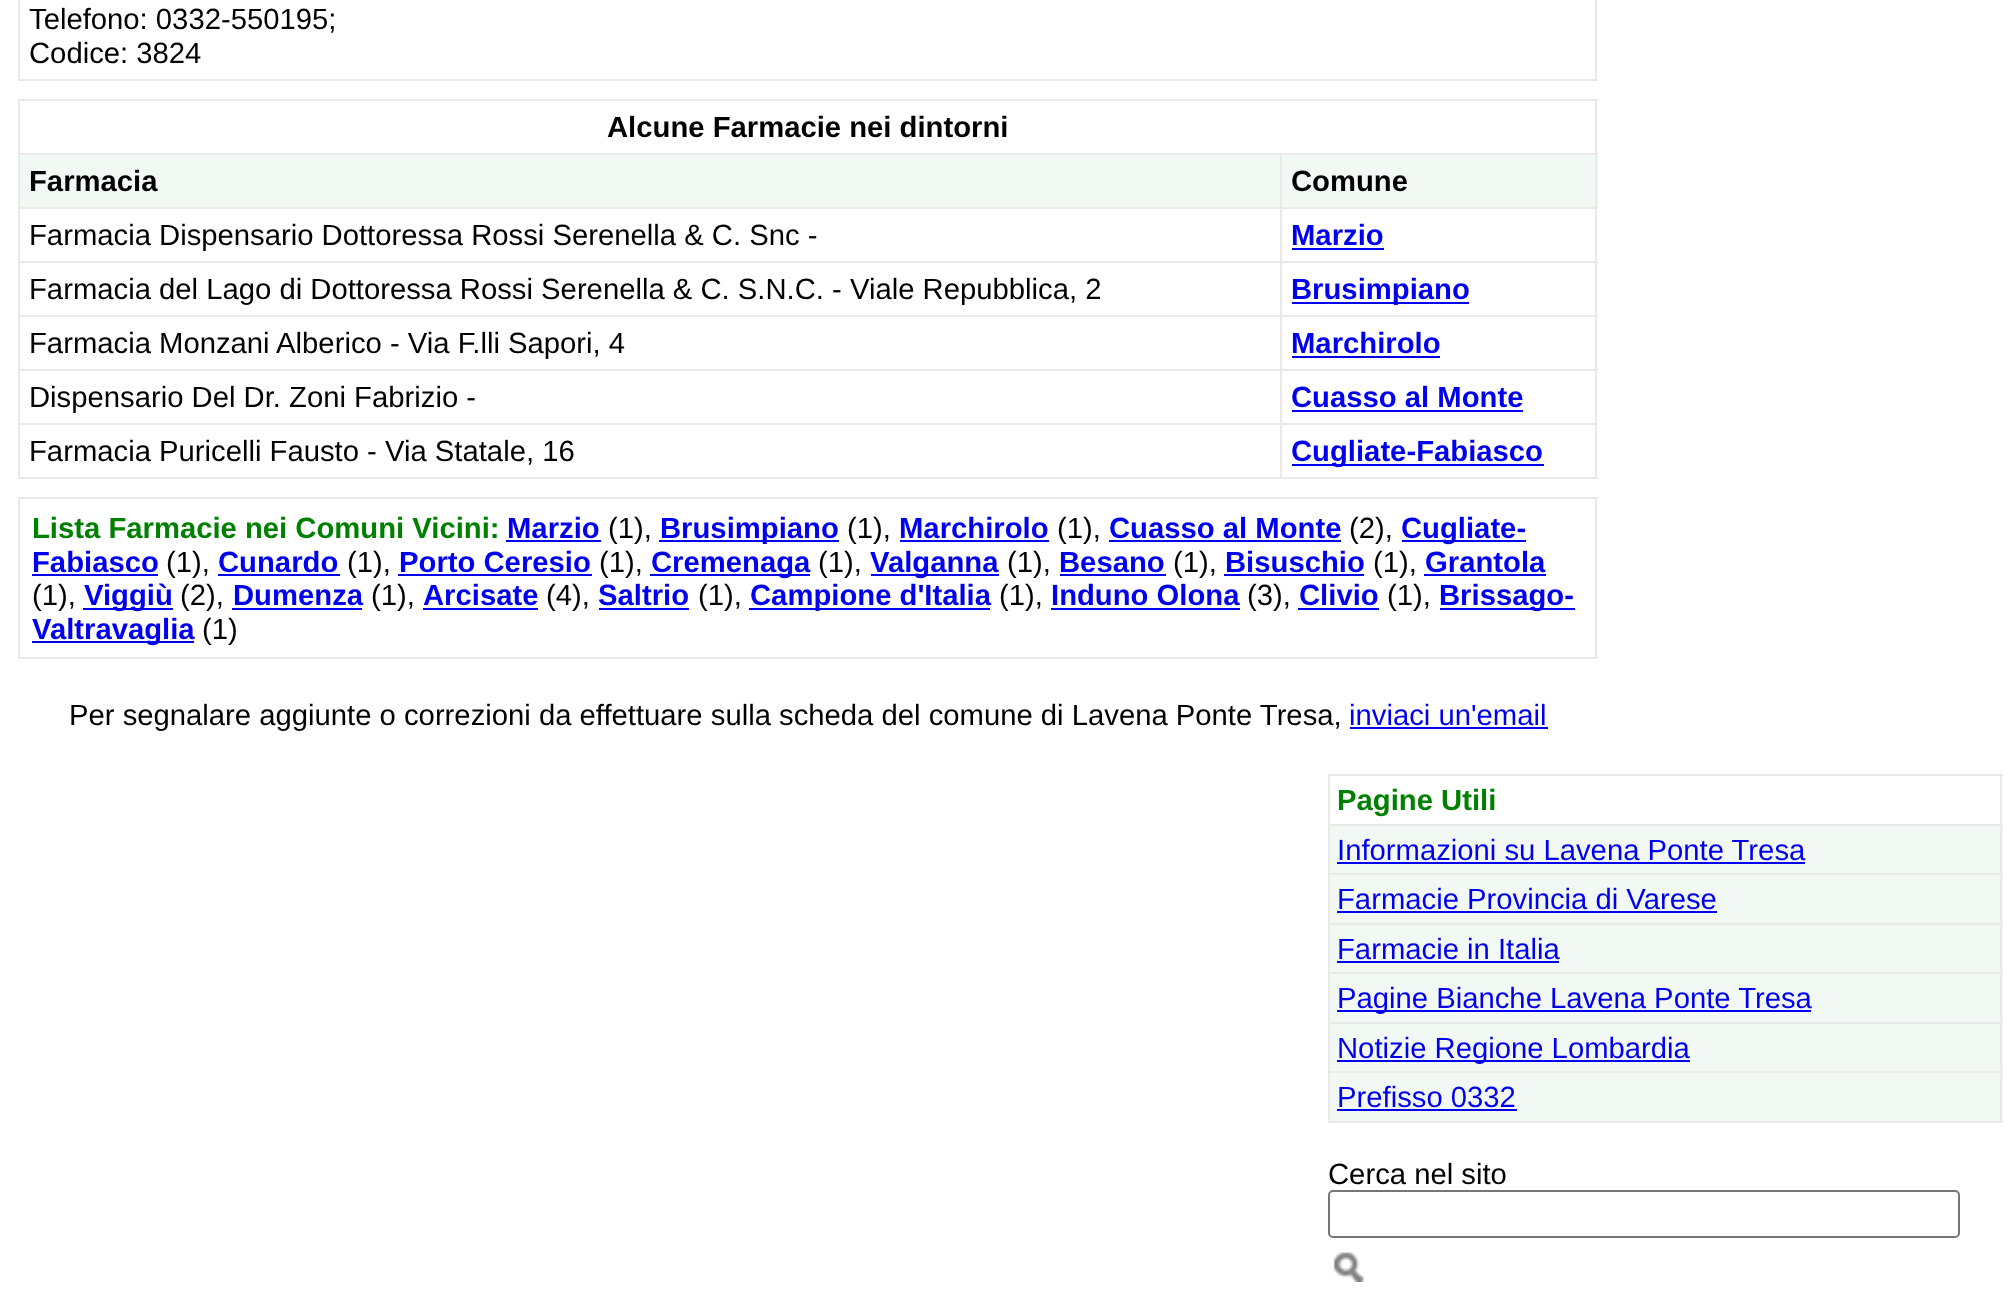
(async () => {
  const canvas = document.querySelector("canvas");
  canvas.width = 2010;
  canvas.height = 1308;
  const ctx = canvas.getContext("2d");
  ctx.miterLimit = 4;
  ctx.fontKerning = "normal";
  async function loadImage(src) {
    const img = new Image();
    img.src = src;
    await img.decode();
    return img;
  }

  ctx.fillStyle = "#ffffff";
  ctx.fillRect(0, 0, 2010, 1308);
  for (const [x, y, w, h, color] of [
    [1595, 0, 2, 81, "#e9e9e9"],
    [18, 79, 1580, 2, "#e9e9e9"],
    [18, 0, 2, 81, "#e9e9e9"],
    [18, 99, 1580, 2, "#e9e9e9"],
    [1282, 155, 316, 52, "#f2f8f4"],
    [1595, 99, 2, 380, "#e9e9e9"],
    [18, 477, 1580, 2, "#e9e9e9"],
    [18, 99, 2, 380, "#e9e9e9"],
    [20, 155, 1260, 52, "#f2f8f4"],
    [1280, 153, 318, 2, "#e9e9e9"],
    [1280, 207, 318, 2, "#e9e9e9"],
    [1280, 261, 318, 2, "#e9e9e9"],
    [1280, 315, 318, 2, "#e9e9e9"],
    [1280, 369, 318, 2, "#e9e9e9"],
    [1280, 423, 318, 2, "#e9e9e9"],
    [1280, 423, 2, 56, "#e9e9e9"],
    [18, 423, 1265, 2, "#e9e9e9"],
    [1280, 369, 2, 56, "#e9e9e9"],
    [18, 369, 1265, 2, "#e9e9e9"],
    [1280, 315, 2, 56, "#e9e9e9"],
    [18, 315, 1265, 2, "#e9e9e9"],
    [1280, 261, 2, 56, "#e9e9e9"],
    [18, 261, 1265, 2, "#e9e9e9"],
    [1280, 207, 2, 56, "#e9e9e9"],
    [18, 207, 1265, 2, "#e9e9e9"],
    [1280, 153, 2, 56, "#e9e9e9"],
    [18, 153, 1265, 2, "#e9e9e9"],
    [1292, 248, 92, 2, "#0000ee"],
    [1292, 302, 177, 2, "#0000ee"],
    [1292, 356, 148, 2, "#0000ee"],
    [1292, 410, 231, 2, "#0000ee"],
    [1292, 464, 252, 2, "#0000ee"],
    [18, 497, 1580, 2, "#e9e9e9"],
    [1595, 497, 2, 162, "#e9e9e9"],
    [18, 657, 1580, 2, "#e9e9e9"],
    [18, 497, 2, 162, "#e9e9e9"],
    [506, 540, 95, 2, "#0000ee"],
    [659, 540, 180, 2, "#0000ee"],
    [900, 540, 149, 2, "#0000ee"],
    [1109, 540, 232, 2, "#0000ee"],
    [1402, 540, 124, 2, "#0000ee"],
    [32, 574, 126, 2, "#0000ee"],
    [218, 574, 122, 2, "#0000ee"],
    [398, 574, 194, 2, "#0000ee"],
    [650, 574, 160, 2, "#0000ee"],
    [871, 574, 128, 2, "#0000ee"],
    [1060, 574, 106, 2, "#0000ee"],
    [1224, 574, 140, 2, "#0000ee"],
    [1424, 574, 122, 2, "#0000ee"],
    [83, 608, 90, 2, "#0000ee"],
    [232, 608, 130, 2, "#0000ee"],
    [423, 608, 115, 2, "#0000ee"],
    [599, 608, 90, 2, "#0000ee"],
    [749, 608, 241, 2, "#0000ee"],
    [1051, 608, 189, 2, "#0000ee"],
    [1298, 608, 81, 2, "#0000ee"],
    [1440, 608, 135, 2, "#0000ee"],
    [32, 641, 162, 2, "#0000ee"],
    [1350, 727, 198, 2, "#0000ee"],
    [1330, 826, 673, 295, "#f2f8f4"],
    [1328, 774, 675, 2, "#e9e9e9"],
    [2000, 774, 2, 349, "#e9e9e9"],
    [1328, 1121, 675, 2, "#e9e9e9"],
    [1328, 774, 2, 349, "#e9e9e9"],
    [1328, 824, 675, 2, "#e9e9e9"],
    [1337, 862, 468, 2, "#0000ee"],
    [1328, 873, 675, 2, "#e9e9e9"],
    [1337, 911, 380, 2, "#0000ee"],
    [1328, 923, 675, 2, "#e9e9e9"],
    [1337, 961, 222, 2, "#0000ee"],
    [1328, 972, 675, 2, "#e9e9e9"],
    [1337, 1010, 474, 2, "#0000ee"],
    [1328, 1022, 675, 2, "#e9e9e9"],
    [1337, 1060, 353, 2, "#0000ee"],
    [1328, 1071, 675, 2, "#e9e9e9"],
    [1337, 1109, 180, 2, "#0000ee"],
  ]) {
    ctx.fillStyle = color;
    ctx.fillRect(x, y, w, h);
  }
  ctx.beginPath();
  ctx.roundRect(1329, 1191, 630, 46, 4);
  ctx.strokeStyle = "#767676";
  ctx.lineWidth = 2;
  ctx.stroke();
  ctx.drawImage(await loadImage("img/1.png"), 1333, 1252, 32, 30);
  ctx.font = "29.25px Liberation Sans";
  ctx.fillStyle = "#000000";
  ctx.fillText("Telefono: 0332-550195;", 29, 29);
  ctx.fillText("Codice: 3824", 29, 63);
  ctx.font = "bold 29.25px Liberation Sans";
  for (const [text, x, y] of [
    ["Alcune Farmacie nei dintorni", 607, 137],
    ["Farmacia", 29, 191],
    ["Comune", 1291, 191],
  ]) {
    ctx.fillText(text, x, y);
  }
  ctx.font = "29.25px Liberation Sans";
  ctx.fillText("Farmacia Dispensario Dottoressa Rossi Serenella & C. Snc -", 29, 245);
  ctx.font = "bold 29.25px Liberation Sans";
  ctx.fillStyle = "#0000ee";
  ctx.fillText("Marzio", 1291, 245);
  ctx.font = "29.25px Liberation Sans";
  ctx.fillStyle = "#000000";
  ctx.fillText("Farmacia del Lago di Dottoressa Rossi Serenella & C. S.N.C. - Viale Repubblica, 2", 29, 299);
  ctx.font = "bold 29.25px Liberation Sans";
  ctx.fillStyle = "#0000ee";
  ctx.fillText("Brusimpiano", 1291, 299);
  ctx.font = "29.25px Liberation Sans";
  ctx.fillStyle = "#000000";
  ctx.fillText("Farmacia Monzani Alberico - Via F.lli Sapori, 4", 29, 353);
  ctx.font = "bold 29.25px Liberation Sans";
  ctx.fillStyle = "#0000ee";
  ctx.fillText("Marchirolo", 1291, 353);
  ctx.font = "29.25px Liberation Sans";
  ctx.fillStyle = "#000000";
  ctx.fillText("Dispensario Del Dr. Zoni Fabrizio -", 29, 407);
  ctx.font = "bold 29.25px Liberation Sans";
  ctx.fillStyle = "#0000ee";
  ctx.fillText("Cuasso al Monte", 1291, 407);
  ctx.font = "29.25px Liberation Sans";
  ctx.fillStyle = "#000000";
  ctx.fillText("Farmacia Puricelli Fausto - Via Statale, 16", 29, 461);
  ctx.font = "bold 29.25px Liberation Sans";
  ctx.fillStyle = "#0000ee";
  ctx.fillText("Cugliate-Fabiasco", 1291, 461);
  ctx.fillStyle = "#008000";
  ctx.fillText("Lista Farmacie nei Comuni Vicini:", 32, 538);
  ctx.fillStyle = "#0000ee";
  ctx.fillText("Marzio", 507, 538);
  ctx.font = "29.25px Liberation Sans";
  ctx.fillStyle = "#000000";
  ctx.fillText("(1),", 608, 538);
  ctx.font = "bold 29.25px Liberation Sans";
  ctx.fillStyle = "#0000ee";
  ctx.fillText("Brusimpiano", 660, 538);
  ctx.font = "29.25px Liberation Sans";
  ctx.fillStyle = "#000000";
  ctx.fillText("(1),", 847, 538);
  ctx.font = "bold 29.25px Liberation Sans";
  ctx.fillStyle = "#0000ee";
  ctx.fillText("Marchirolo", 899, 538);
  ctx.font = "29.25px Liberation Sans";
  ctx.fillStyle = "#000000";
  ctx.fillText("(1),", 1057, 538);
  ctx.font = "bold 29.25px Liberation Sans";
  ctx.fillStyle = "#0000ee";
  ctx.fillText("Cuasso al Monte", 1109, 538);
  ctx.font = "29.25px Liberation Sans";
  ctx.fillStyle = "#000000";
  ctx.fillText("(2),", 1349, 538);
  ctx.font = "bold 29.25px Liberation Sans";
  ctx.fillStyle = "#0000ee";
  ctx.fillText("Cugliate-", 1401, 538);
  ctx.fillText("Fabiasco", 32, 572);
  ctx.font = "29.25px Liberation Sans";
  ctx.fillStyle = "#000000";
  ctx.fillText("(1),", 166, 572);
  ctx.font = "bold 29.25px Liberation Sans";
  ctx.fillStyle = "#0000ee";
  ctx.fillText("Cunardo", 218, 572);
  ctx.font = "29.25px Liberation Sans";
  ctx.fillStyle = "#000000";
  ctx.fillText("(1),", 347, 572);
  ctx.font = "bold 29.25px Liberation Sans";
  ctx.fillStyle = "#0000ee";
  ctx.fillText("Porto Ceresio", 399, 572);
  ctx.font = "29.25px Liberation Sans";
  ctx.fillStyle = "#000000";
  ctx.fillText("(1),", 599, 572);
  ctx.font = "bold 29.25px Liberation Sans";
  ctx.fillStyle = "#0000ee";
  ctx.fillText("Cremenaga", 651, 572);
  ctx.font = "29.25px Liberation Sans";
  ctx.fillStyle = "#000000";
  ctx.fillText("(1),", 818, 572);
  ctx.font = "bold 29.25px Liberation Sans";
  ctx.fillStyle = "#0000ee";
  ctx.fillText("Valganna", 870, 572);
  ctx.font = "29.25px Liberation Sans";
  ctx.fillStyle = "#000000";
  ctx.fillText("(1),", 1007, 572);
  ctx.font = "bold 29.25px Liberation Sans";
  ctx.fillStyle = "#0000ee";
  ctx.fillText("Besano", 1059, 572);
  ctx.font = "29.25px Liberation Sans";
  ctx.fillStyle = "#000000";
  ctx.fillText("(1),", 1173, 572);
  ctx.font = "bold 29.25px Liberation Sans";
  ctx.fillStyle = "#0000ee";
  ctx.fillText("Bisuschio", 1225, 572);
  ctx.font = "29.25px Liberation Sans";
  ctx.fillStyle = "#000000";
  ctx.fillText("(1),", 1373, 572);
  ctx.font = "bold 29.25px Liberation Sans";
  ctx.fillStyle = "#0000ee";
  ctx.fillText("Grantola", 1425, 572);
  ctx.font = "29.25px Liberation Sans";
  ctx.fillStyle = "#000000";
  ctx.fillText("(1),", 32, 605);
  ctx.font = "bold 29.25px Liberation Sans";
  ctx.fillStyle = "#0000ee";
  ctx.fillText("Viggiù", 84, 605);
  ctx.font = "29.25px Liberation Sans";
  ctx.fillStyle = "#000000";
  ctx.fillText("(2),", 180, 605);
  ctx.font = "bold 29.25px Liberation Sans";
  ctx.fillStyle = "#0000ee";
  ctx.fillText("Dumenza", 233, 605);
  ctx.font = "29.25px Liberation Sans";
  ctx.fillStyle = "#000000";
  ctx.fillText("(1),", 371, 605);
  ctx.font = "bold 29.25px Liberation Sans";
  ctx.fillStyle = "#0000ee";
  ctx.fillText("Arcisate", 423, 605);
  ctx.font = "29.25px Liberation Sans";
  ctx.fillStyle = "#000000";
  ctx.fillText("(4),", 546, 605);
  ctx.font = "bold 29.25px Liberation Sans";
  ctx.fillStyle = "#0000ee";
  ctx.fillText("Saltrio", 598, 605);
  ctx.font = "29.25px Liberation Sans";
  ctx.fillStyle = "#000000";
  ctx.fillText("(1),", 698, 605);
  ctx.font = "bold 29.25px Liberation Sans";
  ctx.fillStyle = "#0000ee";
  ctx.fillText("Campione d'Italia", 750, 605);
  ctx.font = "29.25px Liberation Sans";
  ctx.fillStyle = "#000000";
  ctx.fillText("(1),", 999, 605);
  ctx.font = "bold 29.25px Liberation Sans";
  ctx.fillStyle = "#0000ee";
  ctx.fillText("Induno Olona", 1051, 605);
  ctx.font = "29.25px Liberation Sans";
  ctx.fillStyle = "#000000";
  ctx.fillText("(3),", 1247, 605);
  ctx.font = "bold 29.25px Liberation Sans";
  ctx.fillStyle = "#0000ee";
  ctx.fillText("Clivio", 1299, 605);
  ctx.font = "29.25px Liberation Sans";
  ctx.fillStyle = "#000000";
  ctx.fillText("(1),", 1387, 605);
  ctx.font = "bold 29.25px Liberation Sans";
  ctx.fillStyle = "#0000ee";
  ctx.fillText("Brissago-", 1439, 605);
  ctx.fillText("Valtravaglia", 32, 639);
  ctx.font = "29.25px Liberation Sans";
  ctx.fillStyle = "#000000";
  ctx.fillText("(1)", 202, 639);
  ctx.fillText("Per segnalare aggiunte o correzioni da effettuare sulla scheda del comune di Lavena Ponte Tresa,", 69, 725);
  ctx.fillStyle = "#0000ee";
  ctx.fillText("inviaci un'email", 1349, 725);
  ctx.font = "bold 29.25px Liberation Sans";
  ctx.fillStyle = "#008000";
  ctx.fillText("Pagine Utili", 1337, 810);
  ctx.font = "29.25px Liberation Sans";
  ctx.fillStyle = "#0000ee";
  for (const [text, x, y] of [
    ["Informazioni su Lavena Ponte Tresa", 1337, 860],
    ["Farmacie Provincia di Varese", 1337, 909],
    ["Farmacie in Italia", 1337, 959],
    ["Pagine Bianche Lavena Ponte Tresa", 1337, 1008],
    ["Notizie Regione Lombardia", 1337, 1058],
    ["Prefisso 0332", 1337, 1107],
  ]) {
    ctx.fillText(text, x, y);
  }
  ctx.fillStyle = "#000000";
  ctx.fillText("Cerca nel sito", 1328, 1184);
})();
